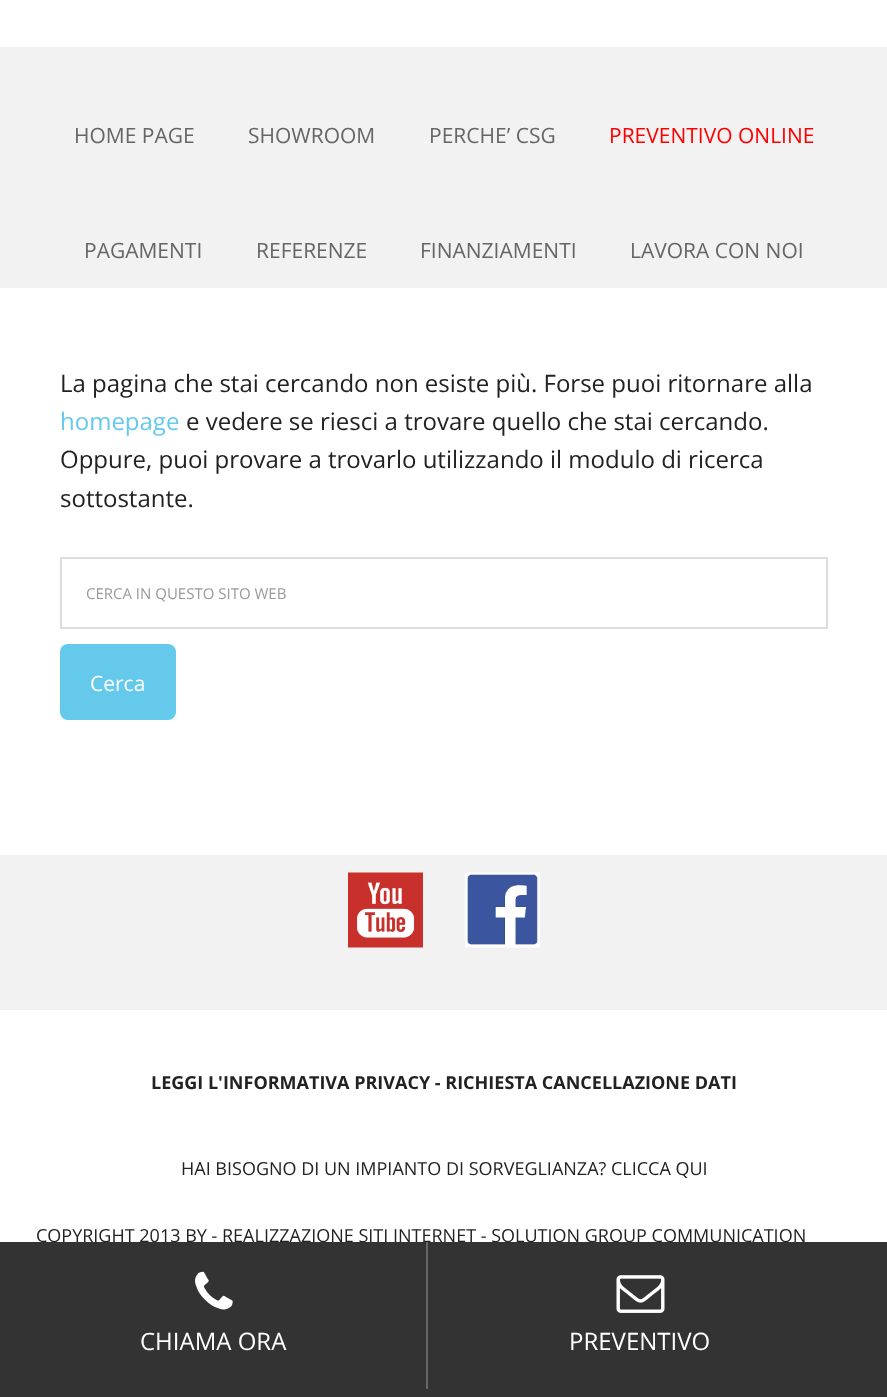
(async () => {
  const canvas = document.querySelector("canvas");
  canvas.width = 887;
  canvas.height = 1397;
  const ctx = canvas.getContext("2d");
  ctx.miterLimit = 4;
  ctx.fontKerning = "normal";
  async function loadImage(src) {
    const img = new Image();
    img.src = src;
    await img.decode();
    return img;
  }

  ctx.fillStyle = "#ffffff";
  ctx.fillRect(0, 0, 887, 1397);
  ctx.fillStyle = "#f2f2f2";
  ctx.fillRect(0, 47, 887, 241);
  ctx.strokeStyle = "#dddddd";
  ctx.lineWidth = 2;
  ctx.strokeRect(61, 558, 766, 70);
  ctx.fillStyle = "#64c9ea";
  ctx.beginPath();
  ctx.roundRect(60, 644, 116, 76, 8);
  ctx.fill();
  ctx.fillStyle = "#f2f2f2";
  ctx.fillRect(0, 855, 887, 155);
  ctx.drawImage(await loadImage("img/1.png"), 348, 872, 75, 76);
  ctx.drawImage(await loadImage("img/2.png"), 465, 872, 75, 76);
  ctx.font = "21px Open Sans";
  ctx.fillStyle = "#666666";
  for (const [text, x, y] of [
    ["HOME PAGE", 74, 143],
    ["SHOWROOM", 248, 143],
    ["PERCHE’ CSG", 429, 143],
  ]) {
    ctx.fillText(text, x, y);
  }
  ctx.fillStyle = "#ff0000";
  ctx.fillText("PREVENTIVO ONLINE", 609, 143);
  ctx.fillStyle = "#666666";
  for (const [text, x, y] of [
    ["PAGAMENTI", 84, 258],
    ["REFERENZE", 256, 258],
    ["FINANZIAMENTI", 420, 258],
    ["LAVORA CON NOI", 630, 258],
  ]) {
    ctx.fillText(text, x, y);
  }
  ctx.font = "24px Open Sans";
  ctx.fillStyle = "#222222";
  ctx.fillText("La pagina che stai cercando non esiste più. Forse puoi ritornare alla", 60, 392);
  ctx.fillStyle = "#64c9ea";
  ctx.fillText("homepage", 60, 430);
  ctx.fillStyle = "#222222";
  for (const [text, x, y] of [
    ["e vedere se riesci a trovare quello che stai cercando.", 186, 430],
    ["Oppure, puoi provare a trovarlo utilizzando il modulo di ricerca", 60, 468],
    ["sottostante.", 60, 507],
  ]) {
    ctx.fillText(text, x, y);
  }
  ctx.font = "15px Open Sans";
  ctx.fillStyle = "#999999";
  ctx.fillText("CERCA IN QUESTO SITO WEB", 86, 599);
  ctx.font = "21px Open Sans";
  ctx.fillStyle = "#ffffff";
  ctx.fillText("Cerca", 90, 691);
  ctx.font = "bold 18px Open Sans";
  ctx.fillStyle = "#222222";
  ctx.fillText("LEGGI L'INFORMATIVA PRIVACY - RICHIESTA CANCELLAZIONE DATI", 151, 1089);
  ctx.font = "18px Open Sans";
  ctx.fillText("HAI BISOGNO DI UN IMPIANTO DI SORVEGLIANZA? CLICCA QUI", 181, 1175);
  ctx.fillText("COPYRIGHT 2013 BY - REALIZZAZIONE SITI INTERNET - SOLUTION GROUP COMMUNICATION", 36, 1242);
  ctx.fillStyle = "#333333";
  ctx.fillRect(0, 1242, 887, 155);
  ctx.drawImage(await loadImage("img/3.png"), 195, 1271, 38, 39);
  ctx.font = "24px Open Sans";
  ctx.fillStyle = "#ffffff";
  ctx.fillText("CHIAMA ORA", 140, 1350);
  ctx.fillStyle = "#666666";
  ctx.fillRect(426, 1242, 2, 147);
  ctx.drawImage(await loadImage("img/4.png"), 616, 1275, 49, 38);
  ctx.fillStyle = "#ffffff";
  ctx.fillText("PREVENTIVO", 569, 1350);
})();
